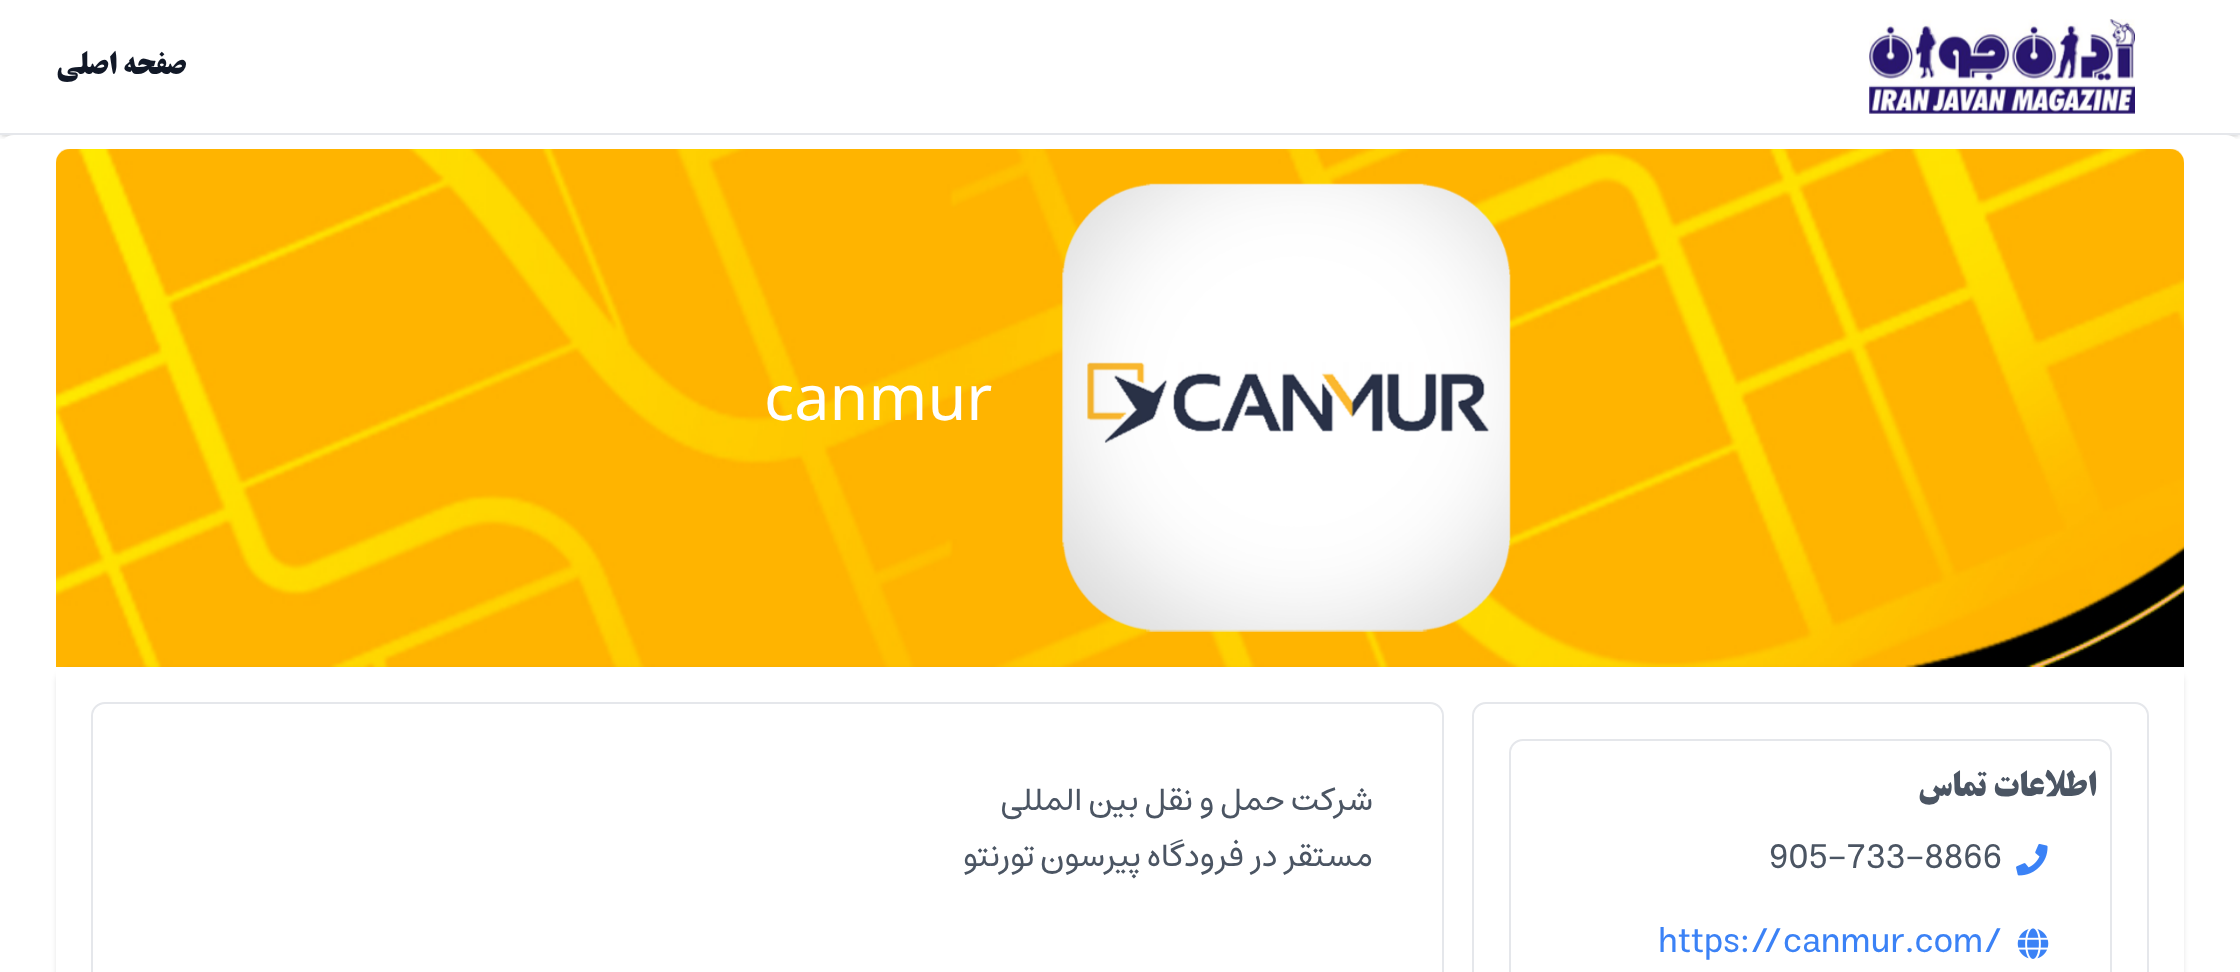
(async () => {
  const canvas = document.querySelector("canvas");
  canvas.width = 2240;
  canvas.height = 972;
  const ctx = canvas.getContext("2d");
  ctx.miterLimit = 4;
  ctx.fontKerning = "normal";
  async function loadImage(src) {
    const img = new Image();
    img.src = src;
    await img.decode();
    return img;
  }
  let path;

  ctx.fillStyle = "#ffffff";
  ctx.fillRect(0, 0, 2240, 972);
  ctx.save();
  ctx.beginPath();
  ctx.rect(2, 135, 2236, 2);
  ctx.clip();
  ctx.fillStyle = "rgba(0, 0, 0, 0.1)";
  ctx.filter = "blur(2px)";
  ctx.beginPath();
  ctx.rect(2, 4, 2236, 131);
  ctx.fill();
  ctx.filter = "none";
  ctx.restore();
  ctx.save();
  ctx.beginPath();
  ctx.rect(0, 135, 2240, 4);
  ctx.clip();
  ctx.fillStyle = "rgba(0, 0, 0, 0.1)";
  ctx.filter = "blur(2.5px)";
  ctx.beginPath();
  ctx.rect(0, 2, 2240, 135);
  ctx.fill();
  ctx.filter = "none";
  ctx.restore();
  ctx.fillStyle = "#e5e7eb";
  ctx.fillRect(0, 133, 2240, 2);
  ctx.drawImage(await loadImage("img/1.png"), 1869, 19, 266, 95);
  ctx.fillStyle = "#ffffff";
  ctx.beginPath();
  ctx.roundRect(0, 135, 2240, 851, 14);
  ctx.fill();
  ctx.drawImage(await loadImage("img/2.png"), 56, 149, 2128, 518);
  ctx.drawImage(await loadImage("img/3.png"), 1062, 183, 449, 449);
  ctx.save();
  path = new Path2D("M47 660H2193V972H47ZM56 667H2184V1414C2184 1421.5 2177.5 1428 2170 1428H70C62.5 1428 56 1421.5 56 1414Z");
  ctx.clip(path, "evenodd");
  ctx.fillStyle = "rgba(0, 0, 0, 0.1)";
  ctx.filter = "blur(2.5px)";
  ctx.beginPath();
  ctx.roundRect(56, 669, 2128, 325, 14);
  ctx.fill();
  ctx.filter = "none";
  ctx.restore();
  ctx.beginPath();
  ctx.roundRect(1473, 703, 675, 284, 13);
  ctx.strokeStyle = "#e5e7eb";
  ctx.lineWidth = 2;
  ctx.stroke();
  ctx.beginPath();
  ctx.roundRect(1510, 740, 601, 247, 13);
  ctx.stroke();
  ctx.drawImage(await loadImage("img/4.png"), 2016, 843, 32, 33);
  ctx.drawImage(await loadImage("img/5.png"), 2017, 928, 32, 31);
  ctx.beginPath();
  ctx.roundRect(92, 703, 1351, 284, 13);
  ctx.stroke();
  ctx.direction = "rtl";
  ctx.font = "bold 31.5px '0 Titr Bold'";
  ctx.fillStyle = "#111827";
  ctx.fillText("صفحه اصلی", 186, 74);
  ctx.direction = "ltr";
  ctx.font = "63px Noto Sans";
  ctx.fillStyle = "#ffffff";
  ctx.fillText("canmur", 764, 420);
  ctx.direction = "rtl";
  ctx.font = "bold 35px '0 Titr Bold'";
  ctx.fillStyle = "#4b5563";
  ctx.fillText("اطلاعات تماس", 2096, 796);
  ctx.direction = "ltr";
  ctx.font = "35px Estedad";
  ctx.fillText("905-733-8866", 1769, 868);
  ctx.fillStyle = "#3b82f6";
  ctx.fillText("https://canmur.com/", 1658, 952);
  ctx.direction = "rtl";
  ctx.font = "31.5px Estedad";
  ctx.fillStyle = "#4b5563";
  ctx.fillText("شرکت حمل و نقل بین المللی", 1373, 810);
  ctx.fillText("مستقر در فرودگاه پیرسون تورنتو", 1373, 866);
})();
